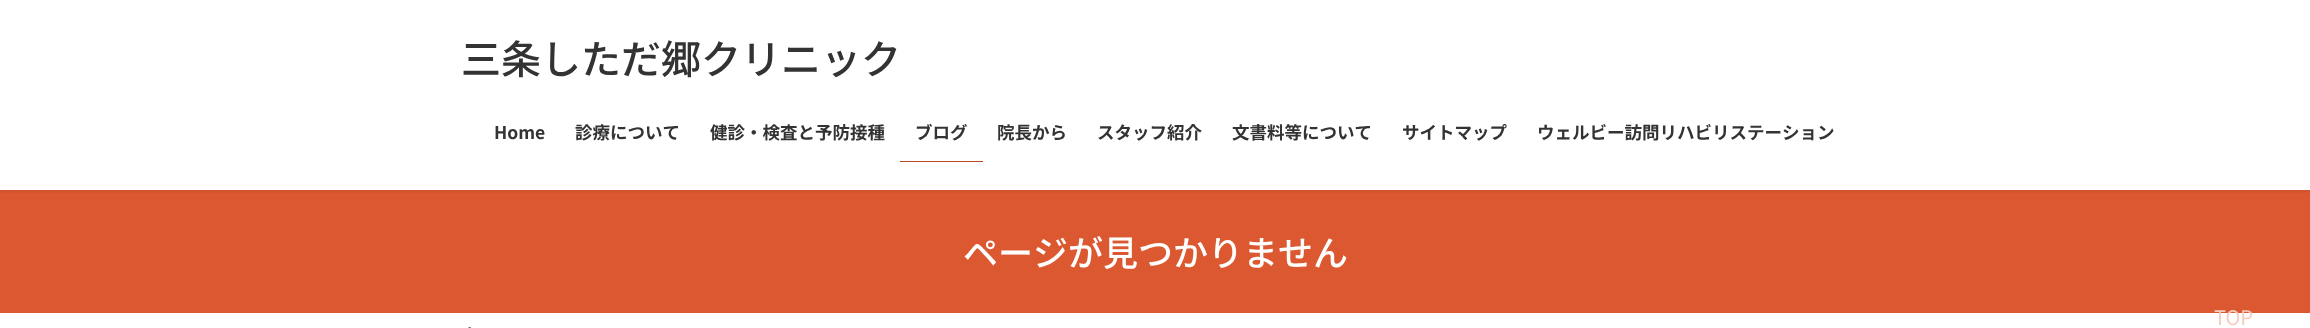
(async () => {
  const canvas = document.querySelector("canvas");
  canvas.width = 2310;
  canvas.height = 328;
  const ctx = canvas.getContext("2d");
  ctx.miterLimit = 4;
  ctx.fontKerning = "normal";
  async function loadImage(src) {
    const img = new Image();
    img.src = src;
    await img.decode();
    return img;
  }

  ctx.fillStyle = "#ffffff";
  ctx.fillRect(0, 0, 2310, 328);
  ctx.fillStyle = "#db5830";
  ctx.fillRect(0, 190, 2310, 123);
  ctx.save();
  ctx.beginPath();
  ctx.rect(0, 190, 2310, 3);
  ctx.clip();
  ctx.fillStyle = "rgba(0, 0, 0, 0.1)";
  ctx.filter = "blur(2px)";
  ctx.beginPath();
  ctx.rect(0, 1, 2310, 190);
  ctx.fill();
  ctx.filter = "none";
  ctx.restore();
  ctx.fillStyle = "#ba4a28";
  ctx.fillRect(900, 161, 83, 1);
  ctx.drawImage(await loadImage("img/1.png"), 468, 326, 4, 2);
  ctx.font = "500 40px Noto Sans JP";
  ctx.fillStyle = "#333333";
  ctx.fillText("三条しただ郷クリニック", 461, 74);
  ctx.font = "bold 17.5px Noto Sans JP";
  for (const [text, x, y] of [
    ["Home", 494, 139],
    ["診療について", 575, 139],
    ["健診・検査と予防接種", 710, 139],
    ["ブログ", 915, 139],
    ["院長から", 997, 139],
    ["スタッフ紹介", 1097, 139],
    ["文書料等について", 1232, 139],
    ["サイトマップ", 1402, 139],
    ["ウェルビー訪問リハビリステーション", 1537, 139],
  ]) {
    ctx.fillText(text, x, y);
  }
  ctx.font = "500 35px Noto Sans JP";
  ctx.fillStyle = "#ffffff";
  ctx.fillText("ページが見つかりません", 963, 266);
  ctx.font = "20px Noto Sans JP";
  ctx.fillStyle = "#f4cdc1";
  ctx.fillText("TOP", 2214, 325);
})();
